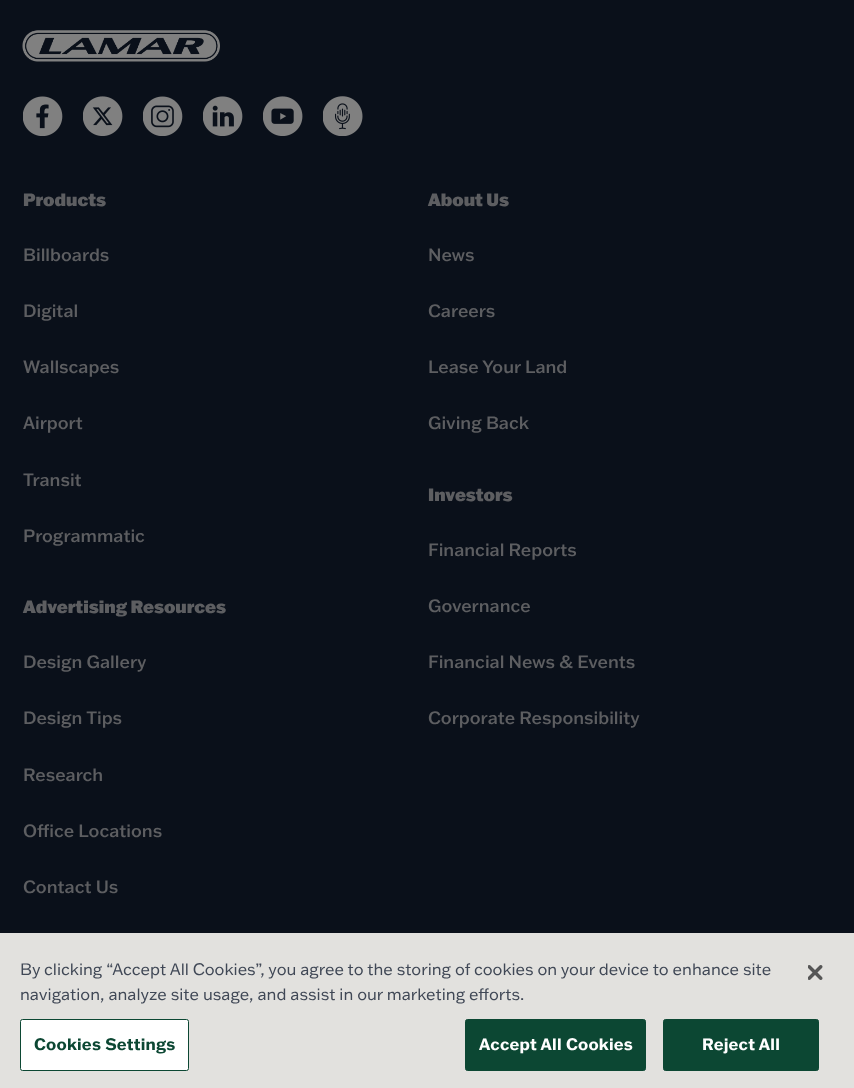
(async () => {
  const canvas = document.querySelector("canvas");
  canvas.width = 854;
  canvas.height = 1088;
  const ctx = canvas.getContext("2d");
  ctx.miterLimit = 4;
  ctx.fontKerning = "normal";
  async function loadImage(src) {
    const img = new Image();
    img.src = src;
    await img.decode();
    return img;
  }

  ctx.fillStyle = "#0a101a";
  ctx.fillRect(0, 0, 854, 1088);
  ctx.drawImage(await loadImage("img/1.png"), 22, 30, 198, 32);
  ctx.drawImage(await loadImage("img/2.png"), 23, 96, 40, 40);
  ctx.drawImage(await loadImage("img/3.png"), 83, 96, 40, 40);
  ctx.drawImage(await loadImage("img/4.png"), 143, 96, 40, 40);
  ctx.drawImage(await loadImage("img/5.png"), 203, 96, 40, 40);
  ctx.drawImage(await loadImage("img/6.png"), 263, 96, 40, 40);
  ctx.drawImage(await loadImage("img/7.png"), 323, 96, 40, 40);
  ctx.fillStyle = "#e2e1de";
  ctx.fillRect(0, 933, 854, 155);
  ctx.fillStyle = "#ffffff";
  ctx.beginPath();
  ctx.roundRect(20.5, 1019.5, 168, 51, 2);
  ctx.fill();
  ctx.strokeStyle = "#0c4733";
  ctx.stroke();
  ctx.fillStyle = "#0c4733";
  ctx.beginPath();
  ctx.roundRect(465.5, 1019.5, 180, 51, 2);
  ctx.fill();
  ctx.stroke();
  ctx.beginPath();
  ctx.roundRect(663.5, 1019.5, 155, 51, 2);
  ctx.fill();
  ctx.stroke();
  ctx.drawImage(await loadImage("img/8.png"), 808, 965, 15, 15);
  ctx.font = "900 17.5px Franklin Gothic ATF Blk";
  ctx.fillStyle = "#5d5e61";
  ctx.fillText("Products", 23, 206);
  ctx.font = "500 17.5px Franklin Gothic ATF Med";
  for (const [text, x, y] of [
    ["Billboards", 23, 261],
    ["Digital", 23, 317],
    ["Wallscapes", 23, 373],
    ["Airport", 23, 429],
    ["Transit", 23, 486],
    ["Programmatic", 23, 542],
  ]) {
    ctx.fillText(text, x, y);
  }
  ctx.font = "900 17.5px Franklin Gothic ATF Blk";
  ctx.fillText("About Us", 428, 206);
  ctx.font = "500 17.5px Franklin Gothic ATF Med";
  for (const [text, x, y] of [
    ["News", 428, 261],
    ["Careers", 428, 317],
    ["Lease Your Land", 428, 373],
    ["Giving Back", 428, 429],
  ]) {
    ctx.fillText(text, x, y);
  }
  ctx.font = "900 17.5px Franklin Gothic ATF Blk";
  ctx.fillText("Advertising Resources", 23, 613);
  ctx.font = "500 17.5px Franklin Gothic ATF Med";
  for (const [text, x, y] of [
    ["Design Gallery", 23, 668],
    ["Design Tips", 23, 724],
    ["Research", 23, 781],
    ["Office Locations", 23, 837],
    ["Contact Us", 23, 893],
  ]) {
    ctx.fillText(text, x, y);
  }
  ctx.font = "900 17.5px Franklin Gothic ATF Blk";
  ctx.fillText("Investors", 428, 501);
  ctx.font = "500 17.5px Franklin Gothic ATF Med";
  for (const [text, x, y] of [
    ["Financial Reports", 428, 556],
    ["Governance", 428, 612],
    ["Financial News & Events", 428, 668],
    ["Corporate Responsibility", 428, 724],
  ]) {
    ctx.fillText(text, x, y);
  }
  ctx.font = "16.25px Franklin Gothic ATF";
  ctx.fillStyle = "#404856";
  ctx.fillText("By clicking “Accept All Cookies”, you agree to the storing of cookies on your device to enhance site", 20, 975);
  ctx.fillText("navigation, analyze site usage, and assist in our marketing efforts.", 20, 1000);
  ctx.letterSpacing = "0.2px";
  ctx.font = "bold 16.25px Franklin Gothic ATF";
  ctx.fillStyle = "#0c4733";
  ctx.fillText("Cookies Settings", 34, 1050);
  ctx.fillStyle = "#ffffff";
  ctx.fillText("Accept All Cookies", 479, 1050);
  ctx.fillText("Reject All", 702, 1050);
})();
